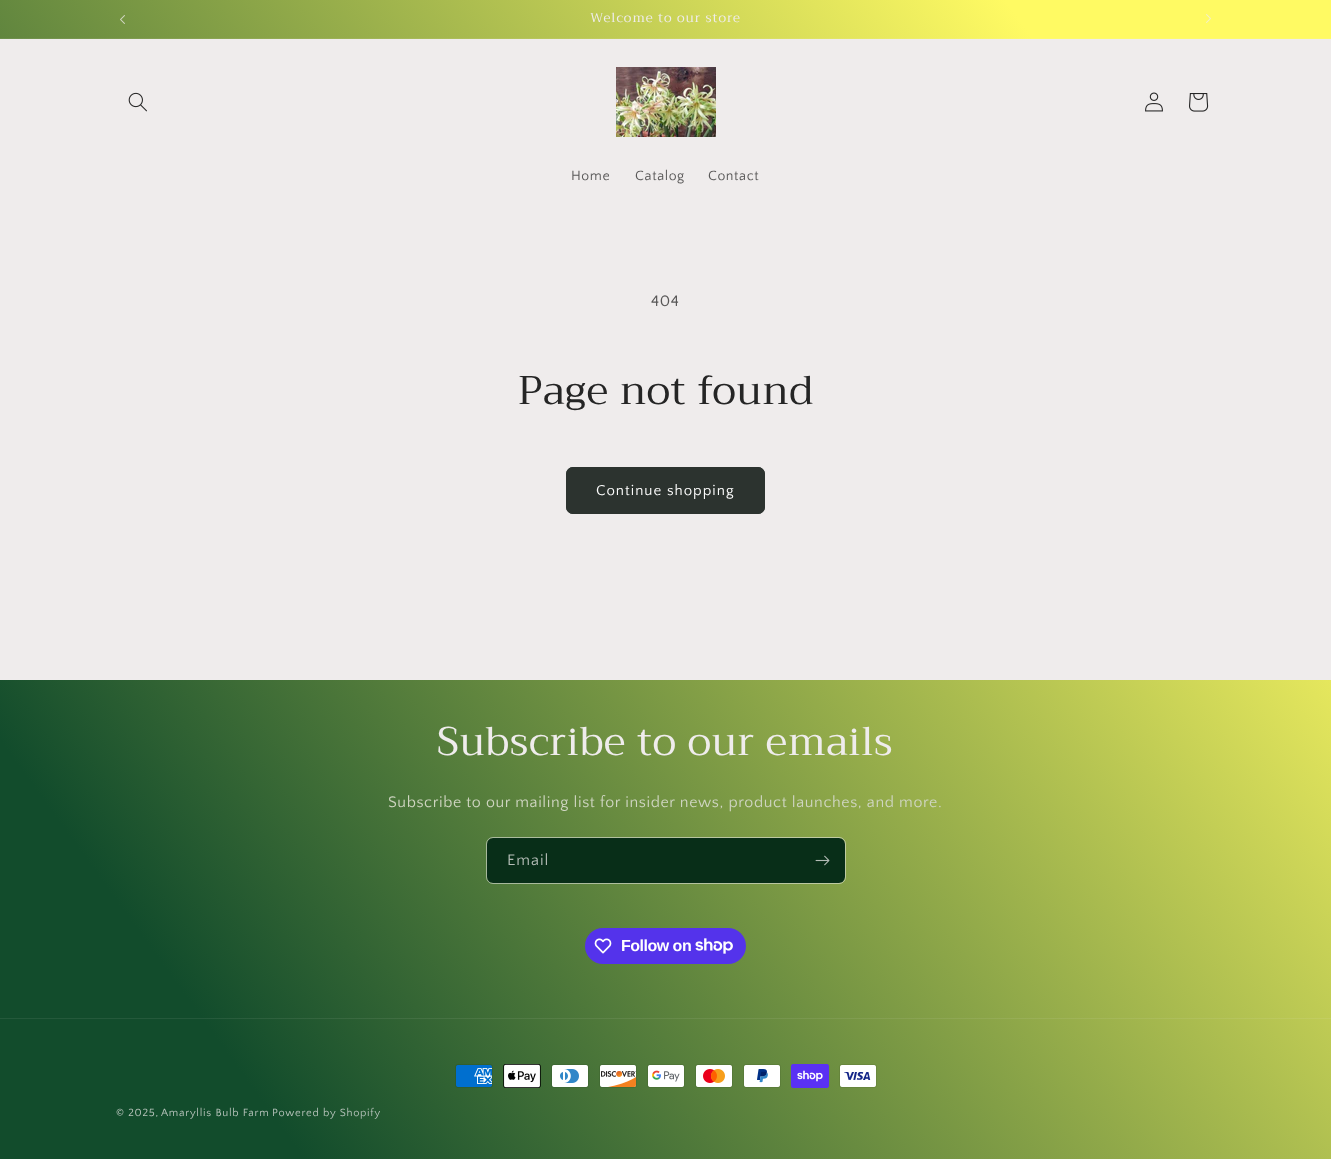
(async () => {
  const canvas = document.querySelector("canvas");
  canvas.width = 1331;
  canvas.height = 1159;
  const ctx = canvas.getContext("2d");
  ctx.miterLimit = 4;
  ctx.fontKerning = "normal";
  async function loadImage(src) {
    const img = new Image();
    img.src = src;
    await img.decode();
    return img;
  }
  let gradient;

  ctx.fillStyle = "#efecec";
  ctx.fillRect(0, 0, 1331, 1159);
  gradient = ctx.createLinearGradient(-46, 1096, 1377, 63);
  gradient.addColorStop(0.14, "#124c2c");
  gradient.addColorStop(0.85, "#fffa63");
  ctx.fillStyle = gradient;
  ctx.fillRect(0, 0, 1331, 38);
  gradient = ctx.createLinearGradient(-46, 1096, 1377, 63);
  gradient.addColorStop(0.14, "#24593b");
  gradient.addColorStop(0.85, "#fef96e");
  ctx.fillStyle = gradient;
  ctx.fillRect(0, 38, 1331, 1);
  ctx.drawImage(await loadImage("img/1.png"), 120, 15, 5, 9);
  ctx.drawImage(await loadImage("img/2.png"), 1206, 14, 5, 9);
  ctx.drawImage(await loadImage("img/3.png"), 128, 92, 19, 20);
  ctx.drawImage(await loadImage("img/4.png"), 616, 67, 100, 70);
  ctx.drawImage(await loadImage("img/5.png"), 1145, 92, 18, 20);
  ctx.drawImage(await loadImage("img/6.png"), 1189, 93, 20, 19);
  ctx.fillStyle = "#2c332f";
  ctx.beginPath();
  ctx.roundRect(566, 467, 199, 47, 7);
  ctx.fill();
  ctx.beginPath();
  ctx.roundRect(566.5, 467.5, 198, 46, 6.5);
  ctx.strokeStyle = "#2c332f";
  ctx.stroke();
  gradient = ctx.createLinearGradient(-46, 1096, 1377, 63);
  gradient.addColorStop(0.14, "#124c2c");
  gradient.addColorStop(0.85, "#fffa63");
  ctx.fillStyle = gradient;
  ctx.fillRect(0, 680, 1331, 248);
  ctx.fillStyle = "#082e18";
  ctx.beginPath();
  ctx.roundRect(487, 838, 358, 45, 6);
  ctx.fill();
  ctx.beginPath();
  ctx.roundRect(486.5, 837.5, 359, 46, 6.5);
  ctx.strokeStyle = "rgba(239, 236, 236, 0.55)";
  ctx.stroke();
  ctx.drawImage(await loadImage("img/7.png"), 815, 855, 15, 11);
  gradient = ctx.createLinearGradient(-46, 1096, 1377, 63);
  gradient.addColorStop(0.14, "#124c2c");
  gradient.addColorStop(0.85, "#fffa63");
  ctx.fillStyle = gradient;
  ctx.fillRect(0, 928, 1331, 231);
  gradient = ctx.createLinearGradient(-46, 1096, 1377, 63);
  gradient.addColorStop(0.14, "#24593b");
  gradient.addColorStop(0.85, "#fef96e");
  ctx.fillStyle = gradient;
  ctx.fillRect(0, 1018, 1331, 1);
  ctx.fillStyle = "#5433eb";
  ctx.beginPath();
  ctx.roundRect(585, 928, 161, 36, 18);
  ctx.fill();
  ctx.drawImage(await loadImage("img/8.png"), 594, 938, 18, 16);
  ctx.drawImage(await loadImage("img/9.png"), 695, 938, 38, 16);
  ctx.drawImage(await loadImage("img/10.png"), 455, 1064, 38, 24);
  ctx.drawImage(await loadImage("img/11.png"), 503, 1064, 38, 24);
  ctx.drawImage(await loadImage("img/12.png"), 551, 1064, 38, 24);
  ctx.drawImage(await loadImage("img/13.png"), 599, 1064, 38, 24);
  ctx.drawImage(await loadImage("img/14.png"), 647, 1064, 38, 24);
  ctx.drawImage(await loadImage("img/15.png"), 695, 1064, 38, 24);
  ctx.drawImage(await loadImage("img/16.png"), 743, 1064, 38, 24);
  ctx.drawImage(await loadImage("img/17.png"), 791, 1064, 38, 24);
  ctx.drawImage(await loadImage("img/18.png"), 839, 1064, 38, 24);
  ctx.letterSpacing = "1px";
  ctx.font = "13px Trirong";
  ctx.fillStyle = "#efecec";
  ctx.fillText("Welcome to our store", 590, 22);
  ctx.letterSpacing = "0.6px";
  ctx.font = "14px Quattrocento Sans";
  ctx.fillStyle = "#585757";
  for (const [text, x, y] of [
    ["Home", 571, 180],
    ["Catalog", 635, 180],
    ["Contact", 708, 180],
  ]) {
    ctx.fillText(text, x, y);
  }
  ctx.font = "16px Quattrocento Sans";
  ctx.fillText("404", 651, 306);
  ctx.font = "40px Trirong";
  ctx.fillStyle = "#252525";
  ctx.fillText("Page not found", 518, 404);
  ctx.letterSpacing = "1px";
  ctx.font = "15px Quattrocento Sans";
  ctx.fillStyle = "#ffffff";
  ctx.fillText("Continue shopping", 596, 495);
  ctx.letterSpacing = "0.6px";
  ctx.font = "40px Trirong";
  ctx.fillStyle = "#efecec";
  ctx.fillText("Subscribe to our emails", 437, 755);
  ctx.font = "16px Quattrocento Sans";
  ctx.fillStyle = "#cfd5c1";
  ctx.fillText("Subscribe to our mailing list for insider news, product launches, and more.", 388, 807);
  ctx.letterSpacing = "1px";
  ctx.fillStyle = "#b5bdb7";
  ctx.fillText("Email", 507, 865);
  ctx.letterSpacing = "-0.5px";
  ctx.font = "bold 16px Liberation Sans";
  ctx.fillStyle = "#ffffff";
  ctx.fillText("Follow on", 621, 951);
  ctx.letterSpacing = "0.75px";
  ctx.font = "11px Quattrocento Sans";
  ctx.fillStyle = "#b8c4bc";
  for (const [text, x, y] of [
    ["© 2025,", 116, 1116],
    ["Amaryllis Bulb Farm", 161, 1116],
    ["Powered by Shopify", 272, 1116],
  ]) {
    ctx.fillText(text, x, y);
  }
})();
